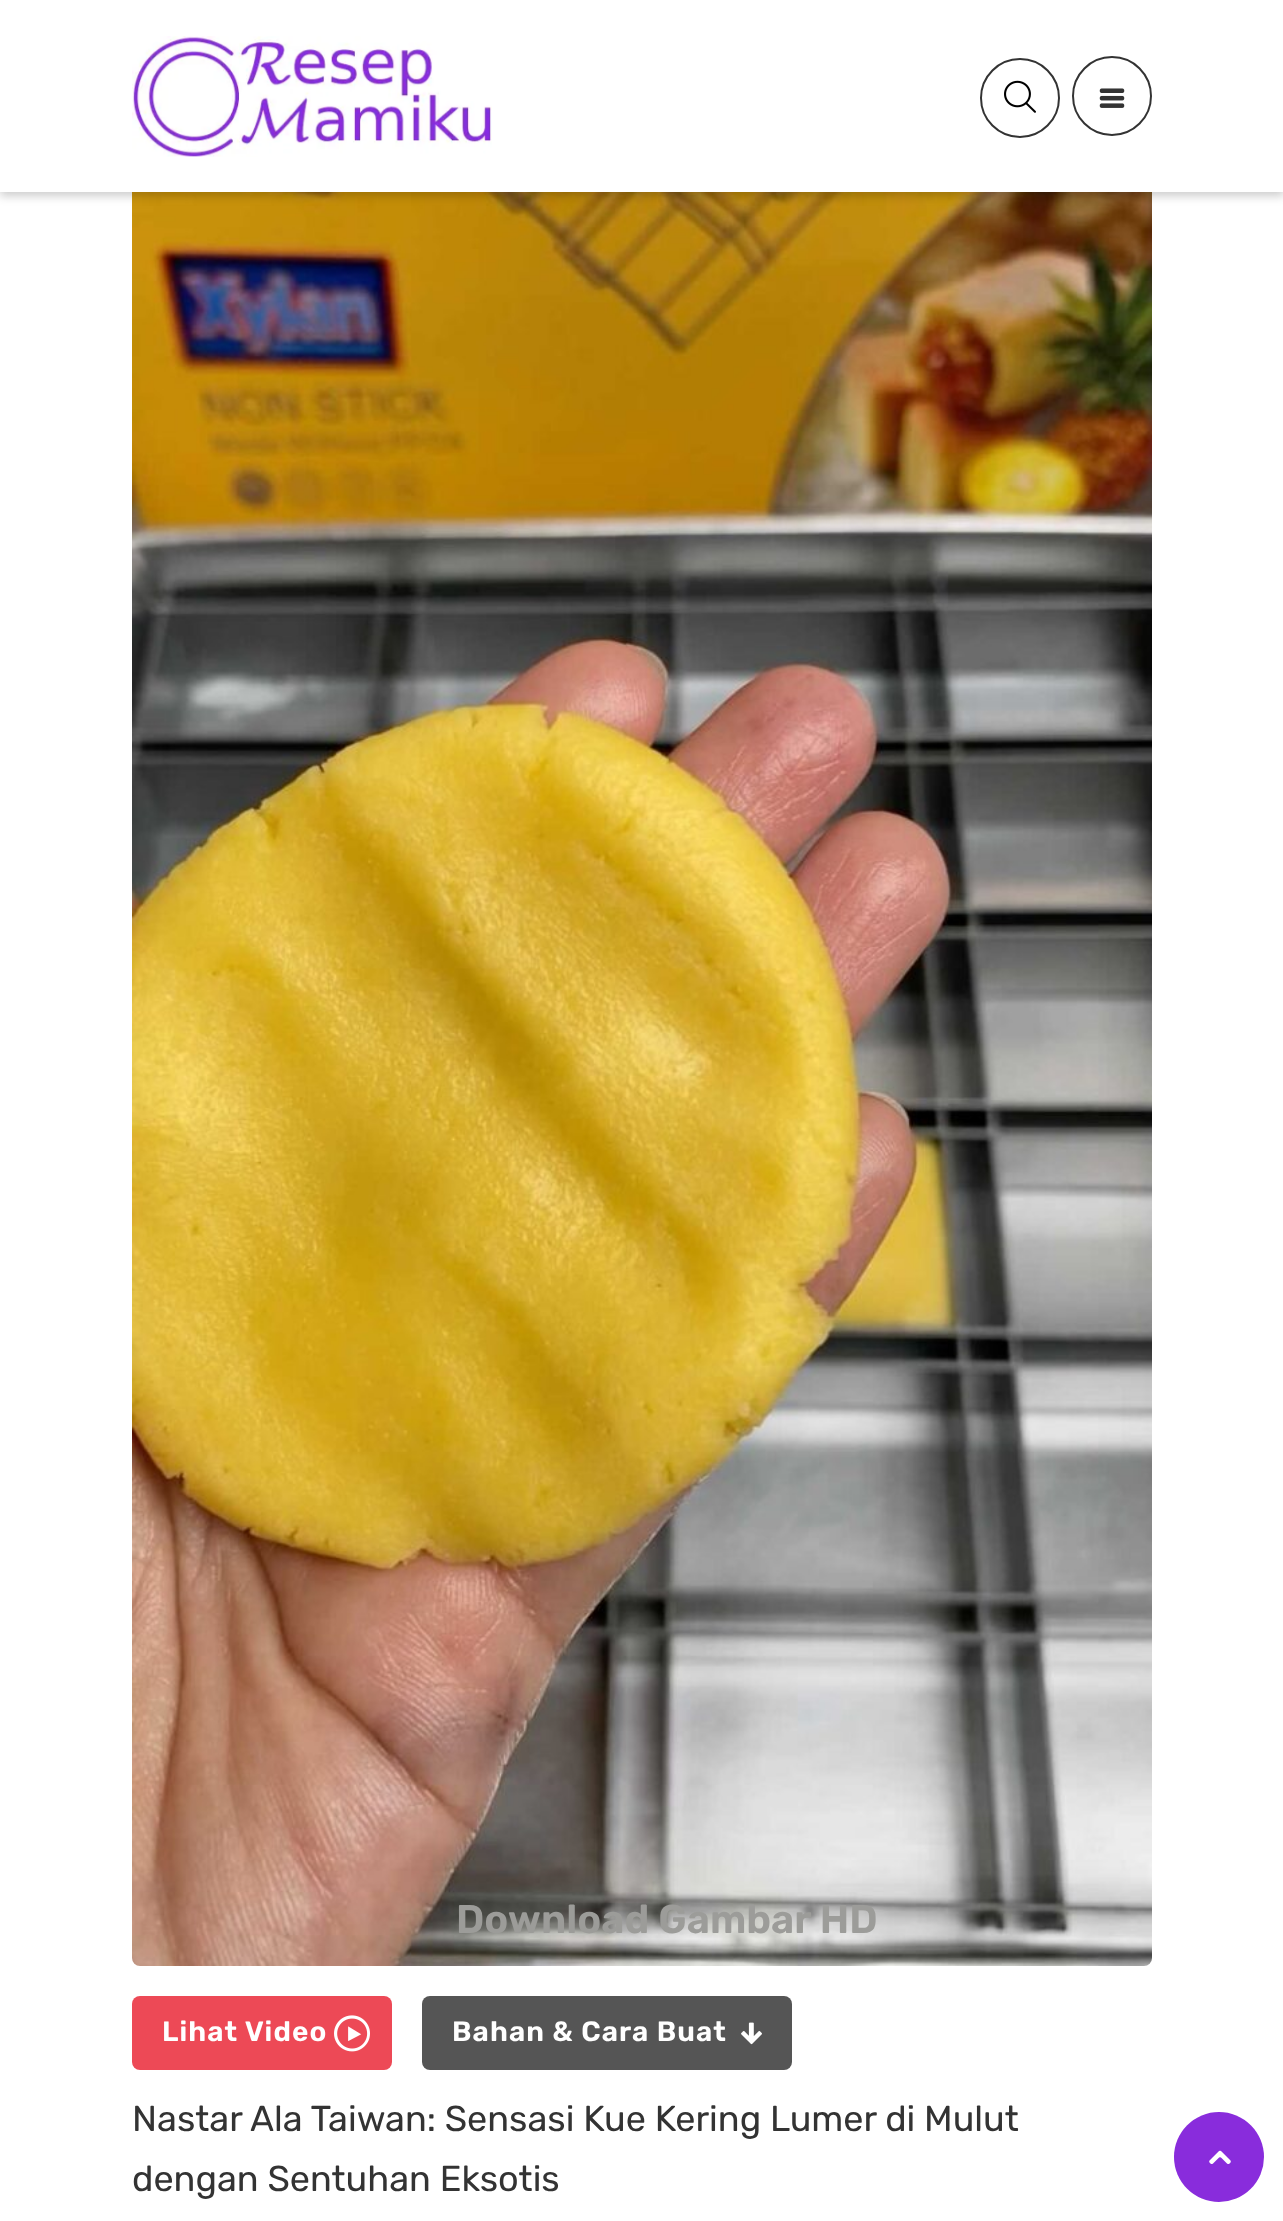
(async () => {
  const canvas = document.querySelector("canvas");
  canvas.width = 1283;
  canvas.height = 2221;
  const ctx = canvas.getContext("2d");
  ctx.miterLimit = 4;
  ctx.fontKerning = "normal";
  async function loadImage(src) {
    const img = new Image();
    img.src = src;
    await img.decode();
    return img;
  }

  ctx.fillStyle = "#ffffff";
  ctx.fillRect(0, 0, 1283, 2221);
  ctx.drawImage(await loadImage("img/4.png"), 132, 192, 1020, 1774);
  ctx.fillStyle = "rgba(0, 0, 0, 0.2)";
  ctx.filter = "blur(5px)";
  ctx.beginPath();
  ctx.rect(0, 4, 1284, 192);
  ctx.fill();
  ctx.filter = "none";
  ctx.fillStyle = "#ffffff";
  ctx.fillRect(0, 0, 1283, 192);
  ctx.drawImage(await loadImage("img/1.png"), 132, 36, 360, 121);
  ctx.beginPath();
  ctx.arc(1020, 98, 39, 0, Math.PI * 2);
  ctx.strokeStyle = "#333333";
  ctx.lineWidth = 2;
  ctx.stroke();
  ctx.drawImage(await loadImage("img/2.png"), 1004, 80, 32, 33);
  ctx.beginPath();
  ctx.arc(1112, 96, 39, 0, Math.PI * 2);
  ctx.stroke();
  ctx.drawImage(await loadImage("img/3.png"), 1099, 88, 26, 20);
  ctx.fillStyle = "#ed4956";
  ctx.beginPath();
  ctx.roundRect(132, 1996, 260, 74, 8);
  ctx.fill();
  ctx.drawImage(await loadImage("img/5.png"), 334, 2015, 36, 37);
  ctx.fillStyle = "#555555";
  ctx.beginPath();
  ctx.roundRect(422, 1996, 370, 74, 8);
  ctx.fill();
  ctx.drawImage(await loadImage("img/6.png"), 741, 2022, 21, 23);
  ctx.fillStyle = "#892cdc";
  ctx.beginPath();
  ctx.arc(1219, 2157, 45, 0, Math.PI * 2);
  ctx.fill();
  ctx.drawImage(await loadImage("img/7.png"), 1209, 2150, 22, 14);
  ctx.font = "600 40px Rubik";
  ctx.fillStyle = "#9c9c99";
  ctx.fillText("Download Gambar HD", 456, 1933);
  ctx.letterSpacing = "1.1px";
  ctx.font = "600 28px Rubik";
  ctx.fillStyle = "#ffffff";
  ctx.fillText("Lihat Video", 162, 2041);
  ctx.fillText("Bahan & Cara Buat", 452, 2041);
  ctx.letterSpacing = "0px";
  ctx.font = "36px Rubik";
  ctx.fillStyle = "#333333";
  ctx.fillText("Nastar Ala Taiwan: Sensasi Kue Kering Lumer di Mulut", 132, 2131);
  ctx.fillText("dengan Sentuhan Eksotis", 132, 2191);
})();
